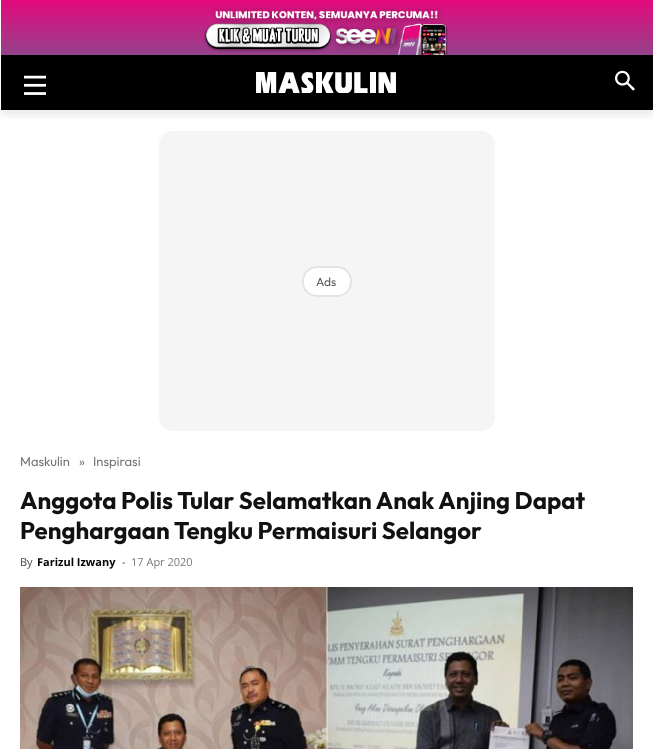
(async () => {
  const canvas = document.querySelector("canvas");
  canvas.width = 653;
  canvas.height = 749;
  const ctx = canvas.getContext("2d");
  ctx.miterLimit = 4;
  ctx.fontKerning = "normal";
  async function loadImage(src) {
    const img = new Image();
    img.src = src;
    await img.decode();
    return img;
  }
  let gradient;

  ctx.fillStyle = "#ffffff";
  ctx.fillRect(0, 0, 653, 749);
  gradient = ctx.createLinearGradient(327, 55, 327, 0);
  gradient.addColorStop(0, "#94428b");
  gradient.addColorStop(1, "#e4097d");
  ctx.fillStyle = gradient;
  ctx.fillRect(1, 0, 652, 55);
  ctx.drawImage(await loadImage("img/1.png"), 203, 7, 245, 48);
  ctx.fillStyle = "#000000";
  ctx.fillRect(1, 55, 652, 55);
  ctx.drawImage(await loadImage("img/2.png"), 24, 75, 22, 20);
  ctx.drawImage(await loadImage("img/3.png"), 256, 72, 140, 21);
  ctx.drawImage(await loadImage("img/4.png"), 615, 70, 20, 21);
  ctx.save();
  ctx.beginPath();
  ctx.rect(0, 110, 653, 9);
  ctx.clip();
  ctx.fillStyle = "rgba(0, 0, 0, 0.08)";
  ctx.filter = "blur(4px)";
  ctx.beginPath();
  ctx.rect(1, 6, 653, 110);
  ctx.fill();
  ctx.filter = "none";
  ctx.restore();
  ctx.fillStyle = "#f5f5f5";
  ctx.beginPath();
  ctx.roundRect(159, 131, 336, 300, 14);
  ctx.fill();
  ctx.fillStyle = "#ffffff";
  ctx.beginPath();
  ctx.roundRect(303, 267, 48, 29, 14);
  ctx.fill();
  ctx.strokeStyle = "#e4e4e4";
  ctx.lineWidth = 2;
  ctx.stroke();
  ctx.drawImage(await loadImage("img/5.png"), 20, 587, 613, 162);
  ctx.font = "12px Outfit";
  ctx.fillStyle = "#5d5555";
  ctx.fillText("Ads", 316, 286);
  ctx.font = "13px Outfit";
  ctx.fillStyle = "#767676";
  for (const [text, x, y] of [
    ["Maskulin", 20, 466],
    ["»", 79, 466],
    ["Inspirasi", 93, 466],
  ]) {
    ctx.fillText(text, x, y);
  }
  ctx.font = "bold 24px Outfit";
  ctx.fillStyle = "#111111";
  ctx.fillText("Anggota Polis Tular Selamatkan Anak Anjing Dapat", 20, 509);
  ctx.fillText("Penghargaan Tengku Permaisuri Selangor", 20, 539);
  ctx.font = "11px Open Sans";
  ctx.fillStyle = "#444444";
  ctx.fillText("By", 20, 566);
  ctx.font = "bold 11px Open Sans";
  ctx.fillStyle = "#000000";
  ctx.fillText("Farizul Izwany", 37, 566);
  ctx.font = "11px Open Sans";
  ctx.fillStyle = "#444444";
  ctx.fillText("-", 122, 566);
  ctx.fillStyle = "#767676";
  ctx.fillText("17 Apr 2020", 131, 566);
})();
